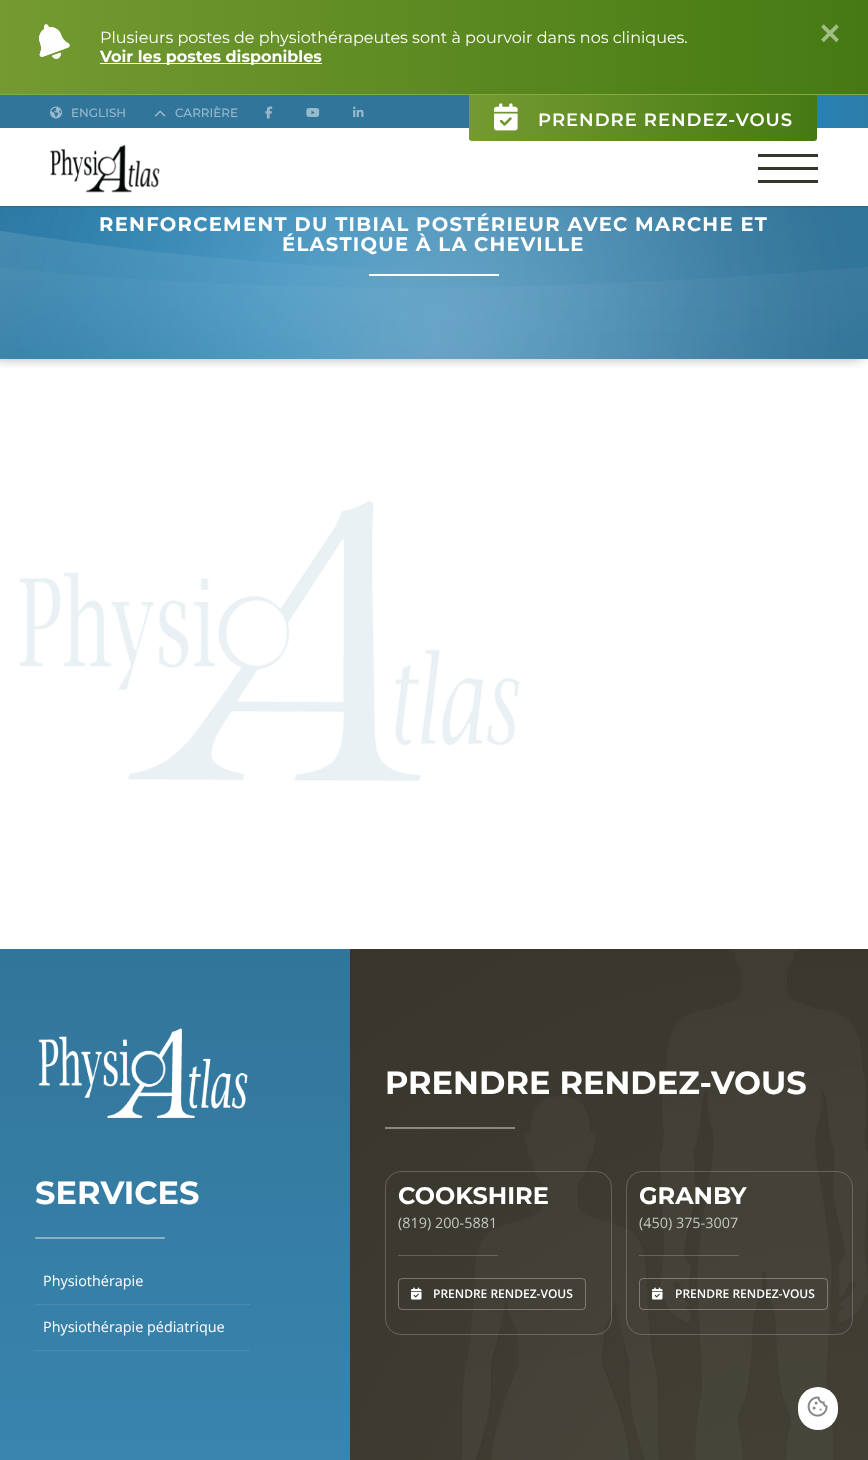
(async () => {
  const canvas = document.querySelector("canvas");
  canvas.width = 868;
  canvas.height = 1460;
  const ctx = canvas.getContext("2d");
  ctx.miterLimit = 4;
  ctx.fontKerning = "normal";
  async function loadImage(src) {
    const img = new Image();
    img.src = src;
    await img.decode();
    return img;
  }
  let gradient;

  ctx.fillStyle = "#ffffff";
  ctx.fillRect(0, 0, 868, 1460);
  ctx.drawImage(await loadImage("img/1.png"), 20, 501, 500, 280);
  ctx.drawImage(await loadImage("img/12.png"), 0, 206, 868, 153);
  ctx.fillStyle = "rgba(0, 0, 0, 0.3)";
  ctx.filter = "blur(1.5px)";
  ctx.beginPath();
  ctx.rect(0, 0, 868, 206);
  ctx.fill();
  ctx.filter = "none";
  ctx.save();
  ctx.beginPath();
  ctx.rect(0, 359, 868, 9);
  ctx.clip();
  ctx.filter = "blur(6px)";
  ctx.beginPath();
  ctx.rect(-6, 110, 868, 249);
  ctx.fill();
  ctx.filter = "none";
  ctx.restore();
  gradient = ctx.createLinearGradient(0, 47, 868, 47);
  gradient.addColorStop(0, "#759a32");
  gradient.addColorStop(1, "#457a12");
  ctx.fillStyle = gradient;
  ctx.fillRect(0, 0, 868, 94);
  ctx.fillStyle = "#85aa42";
  ctx.fillRect(0, 94, 868, 1);
  ctx.drawImage(await loadImage("img/2.png"), 39, 24, 31, 35);
  ctx.drawImage(await loadImage("img/3.png"), 39, 24, 31, 35);
  ctx.drawImage(await loadImage("img/4.png"), 39, 24, 31, 35);
  ctx.fillStyle = "#ffffff";
  ctx.fillRect(100, 63, 222, 1);
  gradient = ctx.createRadialGradient(781, 112, 0, 781, 112, 781);
  gradient.addColorStop(0, "#2586bb");
  gradient.addColorStop(0.2, "#32759a");
  ctx.fillStyle = gradient;
  ctx.fillRect(0, 95, 868, 33);
  ctx.drawImage(await loadImage("img/5.png"), 50, 106, 12, 13);
  ctx.drawImage(await loadImage("img/6.png"), 155, 110, 11, 7);
  ctx.drawImage(await loadImage("img/7.png"), 265, 106, 8, 13);
  ctx.drawImage(await loadImage("img/8.png"), 306, 108, 14, 9);
  ctx.drawImage(await loadImage("img/9.png"), 353, 106, 11, 11);
  ctx.fillStyle = "#ffffff";
  ctx.fillRect(0, 128, 868, 78);
  gradient = ctx.createLinearGradient(469, 118, 817, 118);
  gradient.addColorStop(0, "#759a32");
  gradient.addColorStop(1, "#457a12");
  ctx.fillStyle = gradient;
  ctx.beginPath();
  ctx.roundRect(469, 95, 348, 46, [0, 0, 3, 3]);
  ctx.fill();
  ctx.drawImage(await loadImage("img/10.png"), 494, 103, 24, 28);
  ctx.drawImage(await loadImage("img/11.png"), 50, 144, 110, 49);
  for (const [x, y, w, h, color] of [
    [758, 154, 60, 3, "#38362c"],
    [758, 167, 60, 3, "#38362c"],
    [758, 180, 60, 3, "#38362c"],
    [369, 274, 130, 2, "#ffffff"],
  ]) {
    ctx.fillStyle = color;
    ctx.fillRect(x, y, w, h);
  }
  gradient = ctx.createLinearGradient(175, 949, 175, 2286);
  gradient.addColorStop(0, "#32759a");
  gradient.addColorStop(1, "#439ecf");
  ctx.fillStyle = gradient;
  ctx.fillRect(0, 949, 350, 511);
  ctx.drawImage(await loadImage("img/13.png"), 38, 1028, 210, 90);
  for (const [x, y, w, h, color] of [
    [35, 1237, 130, 2, "#86b2c9"],
    [35, 1304, 215, 1, "#4b8db1"],
    [35, 1350, 215, 1, "#4b8eb3"],
  ]) {
    ctx.fillStyle = color;
    ctx.fillRect(x, y, w, h);
  }
  ctx.drawImage(await loadImage("img/14.png"), 350, 949, 518, 511);
  ctx.fillStyle = "#898882";
  ctx.fillRect(385, 1127, 130, 2);
  ctx.beginPath();
  ctx.roundRect(385.5, 1171.5, 226, 163, 15.5);
  ctx.strokeStyle = "rgba(255, 255, 255, 0.2)";
  ctx.stroke();
  ctx.fillStyle = "rgba(255, 255, 255, 0.2)";
  ctx.fillRect(398, 1255, 100, 1);
  ctx.beginPath();
  ctx.roundRect(398.5, 1278.5, 187, 31, 3.5);
  ctx.strokeStyle = "rgba(255, 255, 255, 0.3)";
  ctx.stroke();
  ctx.drawImage(await loadImage("img/15.png"), 411, 1287, 11, 13);
  ctx.beginPath();
  ctx.roundRect(626.5, 1171.5, 226, 163, 15.5);
  ctx.strokeStyle = "rgba(255, 255, 255, 0.2)";
  ctx.stroke();
  ctx.fillRect(639, 1255, 100, 1);
  ctx.beginPath();
  ctx.roundRect(639.5, 1278.5, 188, 31, 3.5);
  ctx.strokeStyle = "rgba(255, 255, 255, 0.3)";
  ctx.stroke();
  ctx.drawImage(await loadImage("img/16.png"), 652, 1287, 11, 13);
  ctx.fillStyle = "#ffffff";
  ctx.beginPath();
  ctx.roundRect(798, 1387, 40, 43, 20);
  ctx.fill();
  ctx.drawImage(await loadImage("img/17.png"), 807, 1396, 21, 21);
  ctx.font = "16px Montserrat";
  ctx.fillText("Plusieurs postes de physiothérapeutes sont à pourvoir dans nos cliniques.", 100, 43);
  ctx.font = "bold 16px Montserrat";
  ctx.fillText("Voir les postes disponibles", 100, 62);
  ctx.font = "500 48px Montserrat";
  ctx.fillStyle = "#a3bd89";
  ctx.fillText("×", 816, 50);
  ctx.font = "500 12px Montserrat";
  ctx.fillStyle = "#99bacd";
  ctx.fillText("ENGLISH", 71, 117);
  ctx.fillText("CARRIÈRE", 175, 117);
  ctx.letterSpacing = "1px";
  ctx.font = "600 18px Montserrat";
  ctx.fillStyle = "#ffffff";
  ctx.fillText("PRENDRE RENDEZ-VOUS", 538, 126);
  ctx.letterSpacing = "1.3px";
  ctx.wordSpacing = "-0.25px";
  ctx.font = "bold 19.55px Montserrat";
  ctx.fillText("RENFORCEMENT DU TIBIAL POSTÉRIEUR AVEC MARCHE ET", 99, 231);
  ctx.wordSpacing = "-0.5px";
  ctx.fillText("ÉLASTIQUE À LA CHEVILLE", 282, 251);
  ctx.letterSpacing = "0px";
  ctx.wordSpacing = "0px";
  ctx.font = "bold 32px Montserrat";
  ctx.fillText("SERVICES", 35, 1204);
  ctx.font = "14.4px Open Sans";
  ctx.fillText("Physiothérapie", 43, 1286);
  ctx.fillText("Physiothérapie pédiatrique", 43, 1332);
  ctx.font = "bold 32px Montserrat";
  ctx.fillText("PRENDRE RENDEZ-VOUS", 385, 1094);
  ctx.font = "bold 24px Montserrat";
  ctx.fillText("COOKSHIRE", 398, 1204);
  ctx.font = "14.4px Open Sans";
  ctx.fillStyle = "#c5c4c1";
  ctx.fillText("(819) 200-5881", 398, 1228);
  ctx.font = "600 12px Open Sans";
  ctx.fillStyle = "#ffffff";
  ctx.fillText("PRENDRE RENDEZ-VOUS", 433, 1298);
  ctx.font = "bold 24px Montserrat";
  ctx.fillText("GRANBY", 639, 1204);
  ctx.font = "14.4px Open Sans";
  ctx.fillStyle = "#c5c4c1";
  ctx.fillText("(450) 375-3007", 639, 1228);
  ctx.font = "600 12px Open Sans";
  ctx.fillStyle = "#ffffff";
  ctx.fillText("PRENDRE RENDEZ-VOUS", 675, 1298);
})();
